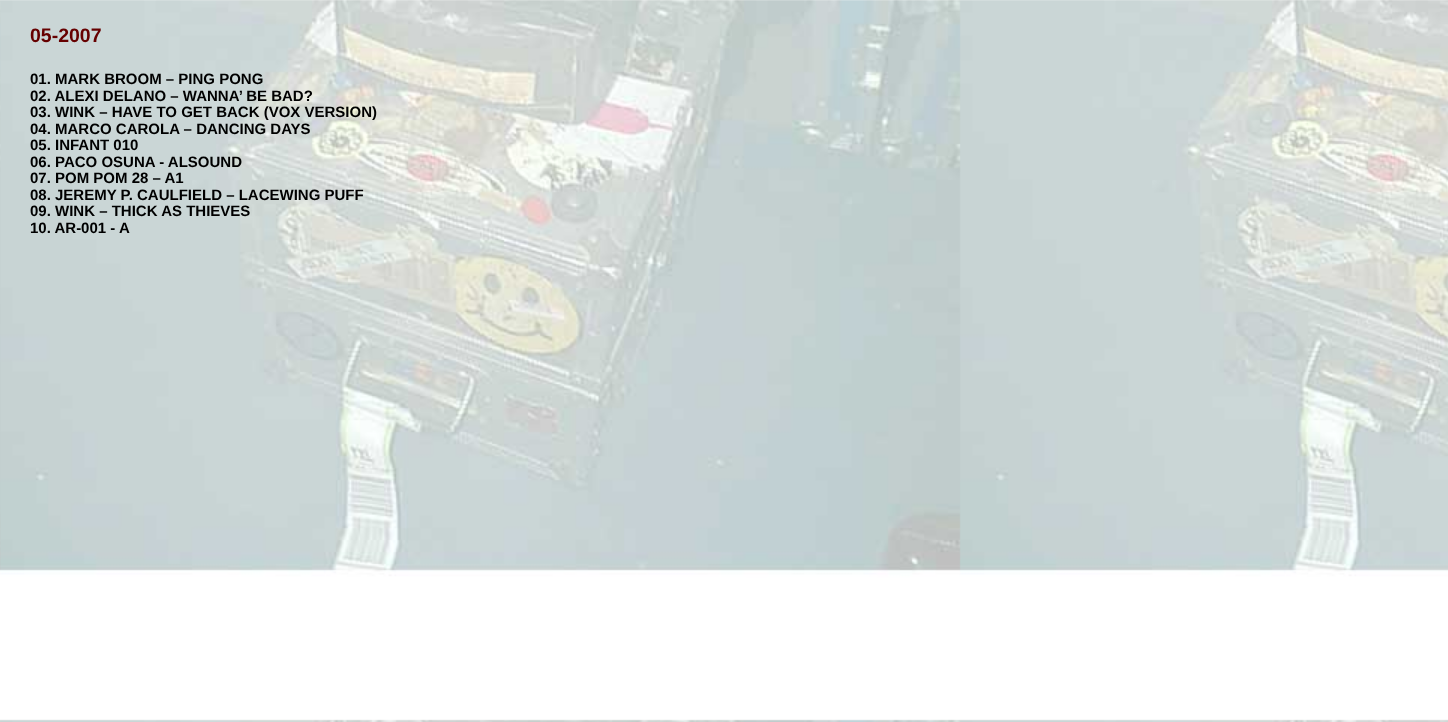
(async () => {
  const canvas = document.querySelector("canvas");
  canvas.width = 1448;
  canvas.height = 722;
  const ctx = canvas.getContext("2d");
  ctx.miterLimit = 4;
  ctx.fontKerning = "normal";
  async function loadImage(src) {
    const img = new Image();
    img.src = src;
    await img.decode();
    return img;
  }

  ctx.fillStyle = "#ffffff";
  ctx.fillRect(0, 0, 1448, 722);
  ctx.drawImage(await loadImage("img/1.png"), 0, 0, 1448, 722);
  ctx.font = "bold 19.5px Liberation Sans";
  ctx.fillStyle = "#660000";
  ctx.fillText("05-2007", 30, 42);
  ctx.font = "bold 15px Liberation Sans";
  ctx.fillStyle = "#000000";
  for (const [text, x, y] of [
    ["01. MARK BROOM – PING PONG", 30, 84],
    ["02. ALEXI DELANO – WANNA’ BE BAD?", 30, 101],
    ["03. WINK – HAVE TO GET BACK (VOX VERSION)", 30, 117],
    ["04. MARCO CAROLA – DANCING DAYS", 30, 134],
    ["05. INFANT 010", 30, 150],
    ["06. PACO OSUNA - ALSOUND", 30, 167],
    ["07. POM POM 28 – A1", 30, 183],
    ["08. JEREMY P. CAULFIELD – LACEWING PUFF", 30, 200],
    ["09. WINK – THICK AS THIEVES", 30, 216],
    ["10. AR-001 - A", 30, 233],
  ]) {
    ctx.fillText(text, x, y);
  }
})();
